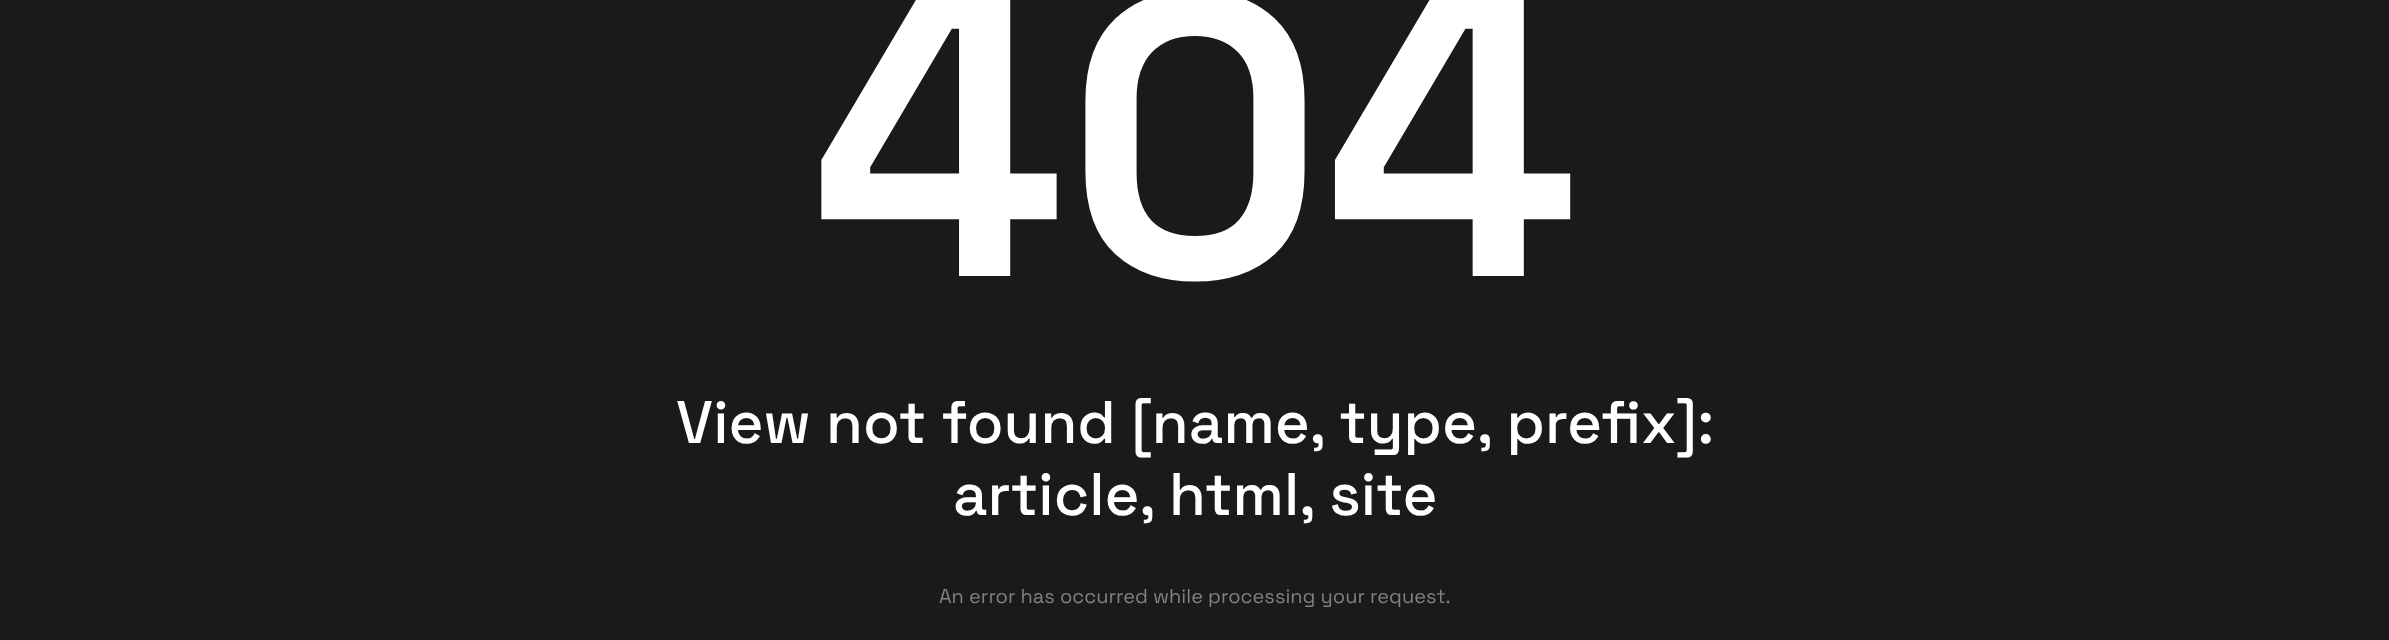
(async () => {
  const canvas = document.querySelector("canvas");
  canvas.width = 2389;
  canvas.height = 640;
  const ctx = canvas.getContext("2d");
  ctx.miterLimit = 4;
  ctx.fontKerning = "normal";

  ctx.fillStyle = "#1a1a1a";
  ctx.fillRect(0, 0, 2389, 640);
  ctx.font = "300 400px Space Grotesk";
  ctx.fillStyle = "#ffffff";
  ctx.fillText("404", 811, 276);
  ctx.font = "300 60px 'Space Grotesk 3'";
  ctx.fillText("View not found [name, type, prefix]:", 676, 443);
  ctx.fillText("article, html, site", 953, 515);
  ctx.font = "300 20px 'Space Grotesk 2'";
  ctx.fillStyle = "#828282";
  ctx.fillText("An error has occurred while processing your request.", 939, 603);
})();
